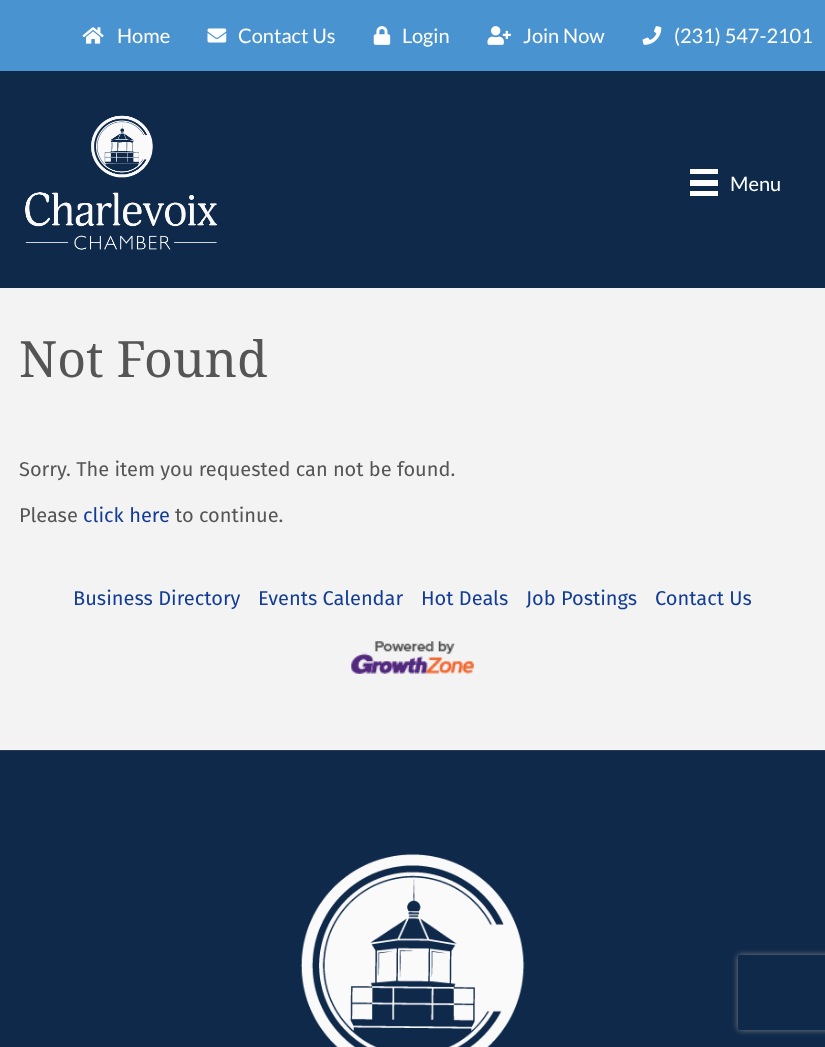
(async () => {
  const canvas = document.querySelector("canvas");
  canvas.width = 825;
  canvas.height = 1047;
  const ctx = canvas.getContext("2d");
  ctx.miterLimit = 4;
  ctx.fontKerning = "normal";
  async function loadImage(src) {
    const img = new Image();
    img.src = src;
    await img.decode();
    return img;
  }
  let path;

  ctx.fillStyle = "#4994d0";
  ctx.fillRect(0, 0, 825, 1047);
  ctx.drawImage(await loadImage("img/1.png"), 82, 27, 22, 17);
  ctx.drawImage(await loadImage("img/2.png"), 207, 28, 20, 15);
  ctx.drawImage(await loadImage("img/3.png"), 373, 26, 18, 19);
  ctx.drawImage(await loadImage("img/4.png"), 487, 26, 24, 19);
  ctx.drawImage(await loadImage("img/5.png"), 642, 26, 20, 19);
  ctx.fillStyle = "#0f294b";
  ctx.fillRect(0, 71, 825, 217);
  ctx.drawImage(await loadImage("img/6.png"), 25, 115, 193, 135);
  for (const [x, y, w, h, color] of [
    [690, 169, 28, 5, "#ffffff"],
    [690, 180, 28, 6, "#ffffff"],
    [690, 191, 28, 5, "#ffffff"],
    [0, 288, 825, 462, "#f3f3f3"],
  ]) {
    ctx.fillStyle = color;
    ctx.fillRect(x, y, w, h);
  }
  ctx.drawImage(await loadImage("img/7.png"), 351, 641, 123, 33);
  ctx.fillStyle = "#0f294b";
  ctx.fillRect(0, 751, 825, 296);
  ctx.fillStyle = "#2c3a56";
  ctx.fillRect(0, 750, 825, 1);
  ctx.drawImage(await loadImage("img/8.png"), 300, 854, 225, 193);
  ctx.save();
  path = new Path2D("M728 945H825V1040H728ZM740.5 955H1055.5C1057 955 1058 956 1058 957.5V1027.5C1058 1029 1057 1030 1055.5 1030H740.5C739 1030 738 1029 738 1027.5V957.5C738 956 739 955 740.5 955Z");
  ctx.clip(path, "evenodd");
  ctx.fillStyle = "#808080";
  ctx.filter = "blur(3px)";
  ctx.beginPath();
  ctx.roundRect(738, 955, 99, 75, 2.5);
  ctx.fill();
  ctx.filter = "none";
  ctx.restore();
  ctx.font = "20px Lato";
  ctx.fillStyle = "#ffffff";
  for (const [text, x, y] of [
    ["Home", 117, 43],
    ["Contact Us", 238, 43],
    ["Login", 402, 43],
    ["Join Now", 523, 43],
    ["(231) 547-2101", 674, 43],
    ["Menu", 730, 191],
  ]) {
    ctx.fillText(text, x, y);
  }
  ctx.font = "50px Noto Serif";
  ctx.fillStyle = "#555555";
  ctx.fillText("Not Found", 19, 377);
  ctx.font = "20px Fira Sans";
  ctx.fillText("Sorry. The item you requested can not be found.", 19, 476);
  ctx.fillText("Please", 19, 522);
  ctx.fillStyle = "#133d94";
  ctx.fillText("click here", 83, 522);
  ctx.fillStyle = "#555555";
  ctx.fillText("to continue.", 175, 522);
  ctx.fillStyle = "#133d94";
  for (const [text, x, y] of [
    ["Business Directory", 73, 605],
    ["Events Calendar", 258, 605],
    ["Hot Deals", 421, 605],
    ["Job Postings", 526, 605],
    ["Contact Us", 655, 605],
  ]) {
    ctx.fillText(text, x, y);
  }
})();
